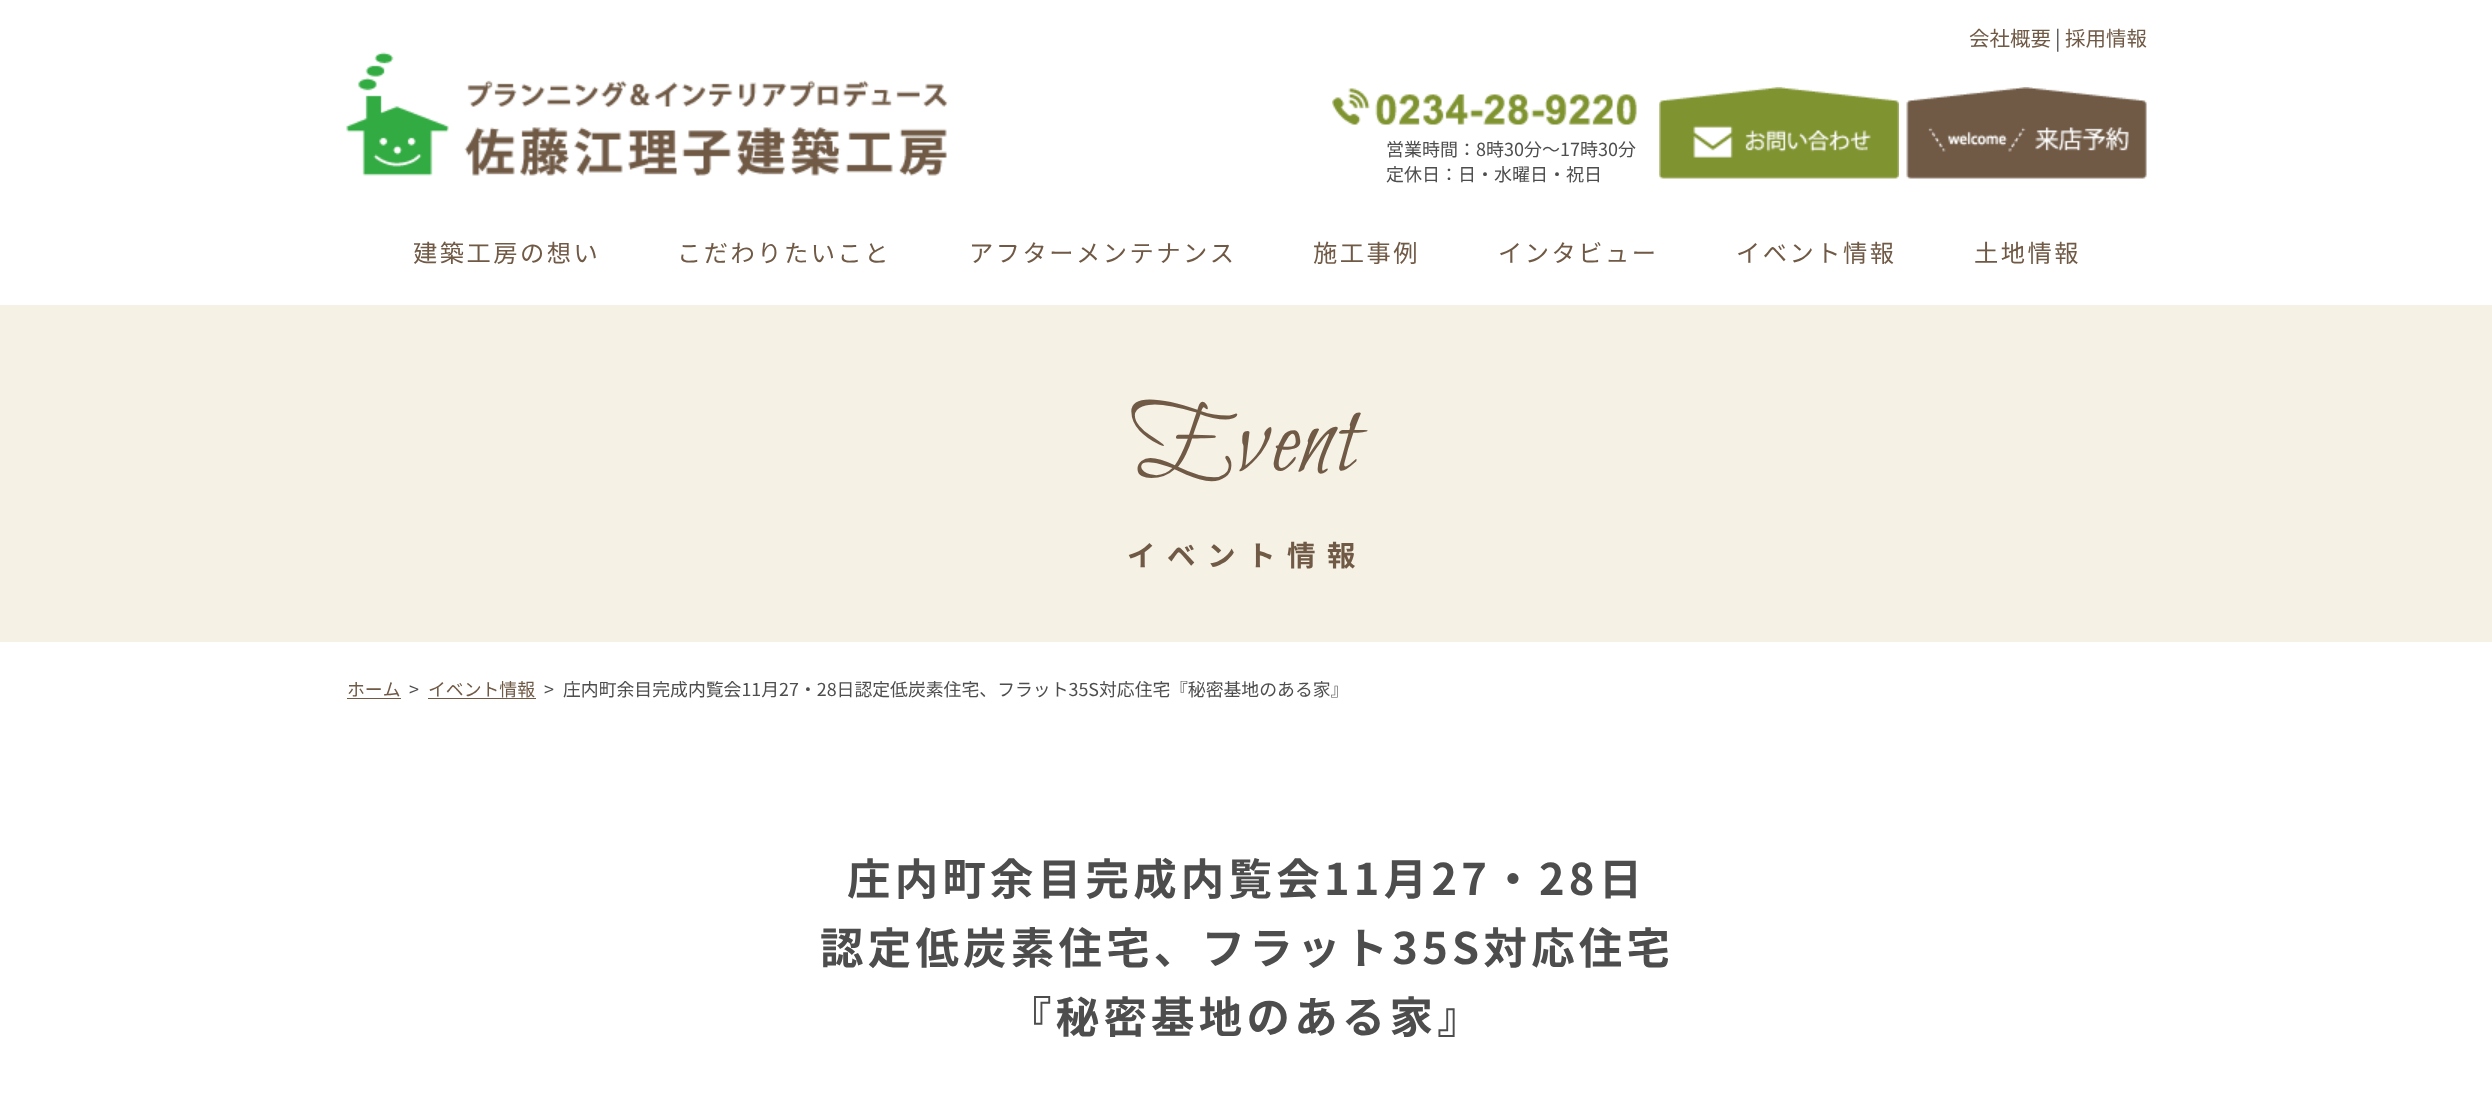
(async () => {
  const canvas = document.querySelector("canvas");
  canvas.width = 2492;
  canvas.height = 1113;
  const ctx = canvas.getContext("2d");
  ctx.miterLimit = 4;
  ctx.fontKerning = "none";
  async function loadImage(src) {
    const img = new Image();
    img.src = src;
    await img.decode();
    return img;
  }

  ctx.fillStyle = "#ffffff";
  ctx.fillRect(0, 0, 2492, 1113);
  ctx.drawImage(await loadImage("img/1.png"), 346, 52, 602, 124);
  ctx.drawImage(await loadImage("img/2.png"), 1332, 88, 305, 37);
  ctx.drawImage(await loadImage("img/3.png"), 1659, 87, 240, 92);
  ctx.drawImage(await loadImage("img/4.png"), 1906, 87, 241, 92);
  for (const [x, y, w, h, color] of [
    [0, 305, 2492, 337, "#f5f1e5"],
    [347, 698, 54, 1, "#705a46"],
    [428, 698, 108, 1, "#705a46"],
  ]) {
    ctx.fillStyle = color;
    ctx.fillRect(x, y, w, h);
  }
  ctx.font = "20.5px Noto Sans JP";
  ctx.fillText("会社概要", 1969, 46);
  ctx.fillStyle = "#4d4d4d";
  ctx.fillText("|", 2055, 46);
  ctx.fillStyle = "#705a46";
  ctx.fillText("採用情報", 2065, 46);
  ctx.font = "18px Noto Sans JP";
  ctx.fillStyle = "#4d4d4d";
  ctx.fillText("営業時間：8時30分～17時30分", 1386, 156);
  ctx.fillText("定休日：日・水曜日・祝日", 1386, 181);
  ctx.letterSpacing = "2.5px";
  ctx.font = "24.25px Noto Sans JP";
  ctx.fillStyle = "#705a46";
  for (const [text, x, y] of [
    ["建築工房の想い", 413, 262],
    ["こだわりたいこと", 677, 262],
    ["アフターメンテナンス", 969, 262],
    ["施工事例", 1313, 262],
    ["インタビュー", 1498, 262],
    ["イベント情報", 1736, 262],
    ["土地情報", 1974, 262],
  ]) {
    ctx.fillText(text, x, y);
  }
  ctx.letterSpacing = "0px";
  ctx.font = "107px Bilbo Swash Caps";
  ctx.fillText("Event", 1134, 470);
  ctx.letterSpacing = "11.5px";
  ctx.font = "bold 28.5px Noto Sans JP";
  ctx.fillText("イベント情報", 1127, 566);
  ctx.letterSpacing = "0px";
  ctx.font = "17.85px Noto Sans JP";
  ctx.fillText("ホーム", 347, 696);
  ctx.fillStyle = "#4d4d4d";
  ctx.fillText(">", 409, 696);
  ctx.fillStyle = "#705a46";
  ctx.fillText("イベント情報", 428, 696);
  ctx.fillStyle = "#4d4d4d";
  for (const [text, x, y] of [
    [">", 544, 696],
    ["庄内町余目完成内覧会11月27・28日認定低炭素住宅、フラット35S対応住宅", 563, 696],
    ["『秘密基地のある家』", 1170, 696],
  ]) {
    ctx.fillText(text, x, y);
  }
  ctx.letterSpacing = "4.3px";
  ctx.font = "bold 43.4px Noto Sans JP";
  for (const [text, x, y] of [
    ["庄内町余目完成内覧会11月27・28日", 847, 895],
    ["認定低炭素住宅、フラット35S対応住宅", 820, 964],
    ["『秘密基地のある家』", 1008, 1033],
  ]) {
    ctx.fillText(text, x, y);
  }
})();
